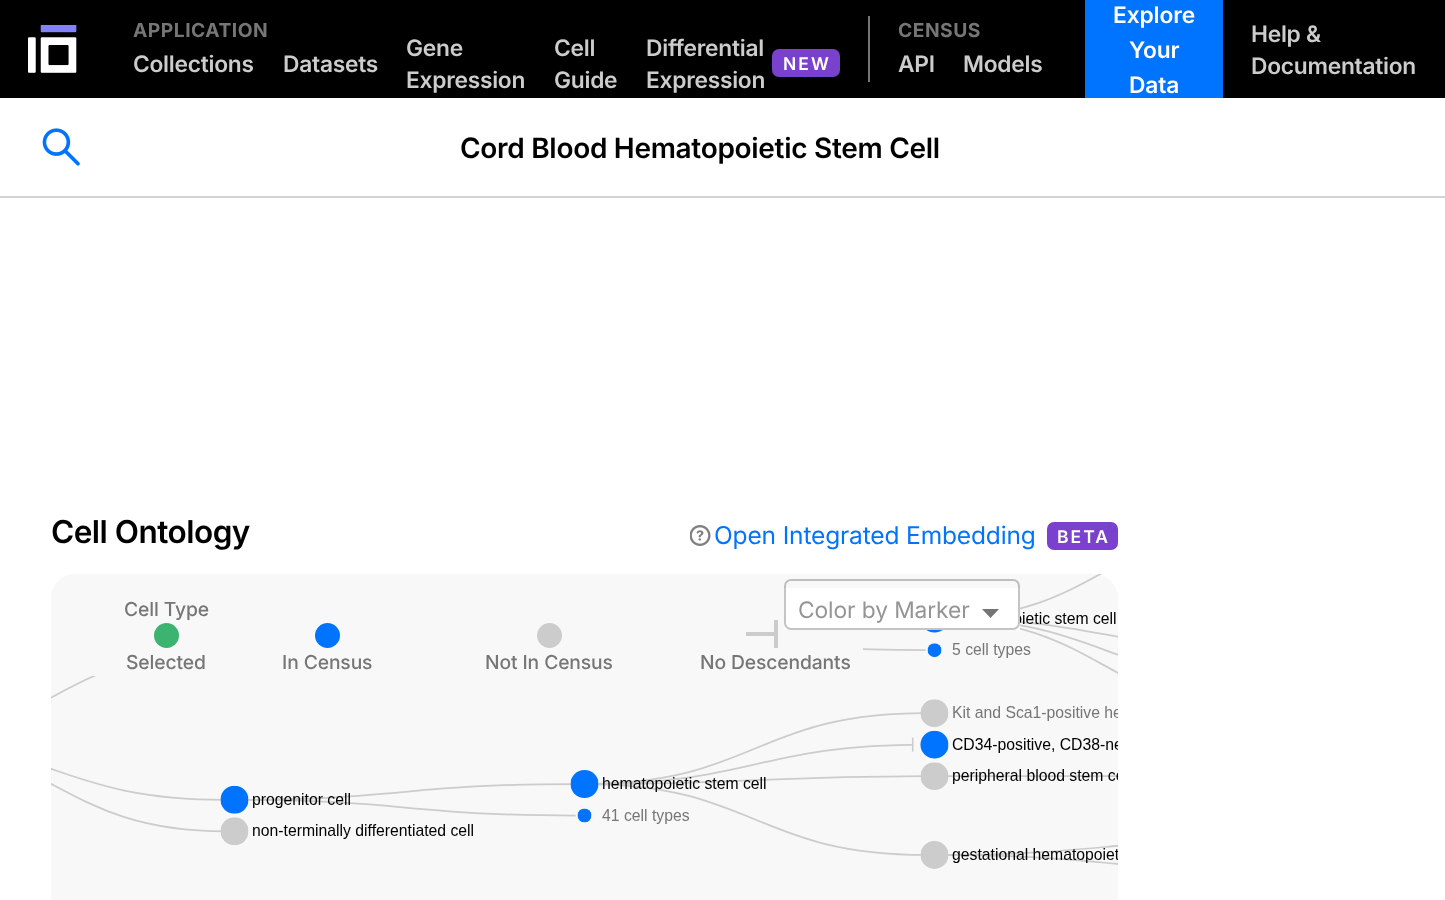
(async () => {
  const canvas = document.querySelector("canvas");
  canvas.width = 1445;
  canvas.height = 900;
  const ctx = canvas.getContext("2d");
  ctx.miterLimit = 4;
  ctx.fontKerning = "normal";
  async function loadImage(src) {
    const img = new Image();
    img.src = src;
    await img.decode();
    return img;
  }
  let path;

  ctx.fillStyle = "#ffffff";
  ctx.fillRect(0, 0, 1445, 900);
  ctx.fillStyle = "#000000";
  ctx.fillRect(0, 0, 1445, 98);
  ctx.drawImage(await loadImage("img/1.png"), 28, 25, 49, 48);
  ctx.fillStyle = "#7a41ce";
  ctx.beginPath();
  ctx.roundRect(772, 49, 68, 28, 7);
  ctx.fill();
  ctx.fillStyle = "#767676";
  ctx.fillRect(868, 16, 2, 66);
  ctx.fillStyle = "#0073ff";
  ctx.fillRect(1087, 0, 134, 98);
  ctx.strokeStyle = "#0073ff";
  ctx.lineWidth = 2;
  ctx.strokeRect(1086, -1, 136, 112);
  ctx.fillStyle = "#ffffff";
  ctx.fillRect(1085, 98, 138, 14);
  ctx.drawImage(await loadImage("img/2.png"), 42, 128, 38, 38);
  ctx.fillStyle = "#d3d3d3";
  ctx.fillRect(0, 196, 1445, 2);
  ctx.drawImage(await loadImage("img/3.png"), 690, 525, 21, 21);
  ctx.fillStyle = "#7a41ce";
  ctx.beginPath();
  ctx.roundRect(1047, 522, 71, 28, 7);
  ctx.fill();
  ctx.drawImage(await loadImage("img/4.png"), 51, 574, 1068, 326);
  ctx.fillStyle = "#f8f8f8";
  ctx.beginPath();
  ctx.roundRect(51, 574, 812, 102, 25);
  ctx.fill();
  ctx.fillStyle = "#3cb371";
  ctx.beginPath();
  ctx.arc(166.5, 635.5, 12.5, 0, Math.PI * 2);
  ctx.fill();
  ctx.fillStyle = "#0073ff";
  ctx.beginPath();
  ctx.arc(327.5, 635.5, 12.5, 0, Math.PI * 2);
  ctx.fill();
  ctx.fillStyle = "#cccccc";
  ctx.beginPath();
  ctx.arc(549.5, 635.5, 12.5, 0, Math.PI * 2);
  ctx.fill();
  for (const [x, y, w, h, color] of [
    [746, 632, 28, 4, "#cccccc"],
    [774, 620, 4, 28, "#cccccc"],
    [784, 588, 236, 42, "#ffffff"],
  ]) {
    ctx.fillStyle = color;
    ctx.fillRect(x, y, w, h);
  }
  ctx.fillStyle = "#757575";
  path = new Path2D("M982 609L990.5 618L999 609Z");
  ctx.fill(path);
  ctx.beginPath();
  ctx.roundRect(785, 580, 234, 49, 6);
  ctx.strokeStyle = "rgba(0, 0, 0, 0.23)";
  ctx.stroke();
  ctx.letterSpacing = "0.5px";
  ctx.font = "bold 19.25px Inter";
  ctx.fillStyle = "#767676";
  ctx.fillText("APPLICATION", 133, 37);
  ctx.letterSpacing = "-0.25px";
  ctx.font = "600 22.75px Inter";
  ctx.fillStyle = "#cccccc";
  for (const [text, x, y] of [
    ["Collections", 133, 72],
    ["Datasets", 283, 72],
    ["Gene", 406, 56],
    ["Expression", 406, 88],
    ["Cell", 554, 56],
    ["Guide", 554, 88],
    ["Differential", 646, 56],
    ["Expression", 646, 88],
  ]) {
    ctx.fillText(text, x, y);
  }
  ctx.letterSpacing = "2px";
  ctx.font = "600 17.5px Inter";
  ctx.fillStyle = "#ffffff";
  ctx.fillText("NEW", 783, 70);
  ctx.letterSpacing = "0.5px";
  ctx.font = "bold 19.25px Inter";
  ctx.fillStyle = "#767676";
  ctx.fillText("CENSUS", 898, 37);
  ctx.letterSpacing = "-0.25px";
  ctx.font = "600 22.75px Inter";
  ctx.fillStyle = "#cccccc";
  ctx.fillText("API", 898, 72);
  ctx.fillText("Models", 963, 72);
  ctx.letterSpacing = "-0.1px";
  ctx.fillStyle = "#ffffff";
  for (const [text, x, y] of [
    ["Explore", 1113, 23],
    ["Your", 1129, 58],
    ["Data", 1129, 93],
  ]) {
    ctx.fillText(text, x, y);
  }
  ctx.letterSpacing = "-0.25px";
  ctx.fillStyle = "#cccccc";
  ctx.fillText("Help &", 1251, 42);
  ctx.fillText("Documentation", 1251, 74);
  ctx.letterSpacing = "-0.3px";
  ctx.font = "600 28px Inter";
  ctx.fillStyle = "#000000";
  ctx.fillText("Cord Blood Hematopoietic Stem Cell", 460, 158);
  ctx.letterSpacing = "-0.5px";
  ctx.font = "600 31.5px Inter";
  ctx.fillText("Cell Ontology", 51, 543);
  ctx.letterSpacing = "-0.15px";
  ctx.font = "24.5px Inter";
  ctx.fillStyle = "#0073ff";
  ctx.fillText("Open Integrated Embedding", 714, 544);
  ctx.letterSpacing = "2px";
  ctx.font = "600 17.5px Inter";
  ctx.fillStyle = "#ffffff";
  ctx.fillText("BETA", 1057, 543);
  ctx.letterSpacing = "-0.1px";
  ctx.font = "500 19.25px Inter";
  ctx.fillStyle = "#767676";
  for (const [text, x, y] of [
    ["Cell Type", 124, 616],
    ["Selected", 126, 669],
    ["In Census", 282, 669],
    ["Not In Census", 485, 669],
    ["No Descendants", 700, 669],
  ]) {
    ctx.fillText(text, x, y);
  }
  ctx.font = "22.75px Inter";
  ctx.fillStyle = "#949494";
  ctx.fillText("Color by Marker", 798, 618);
})();
